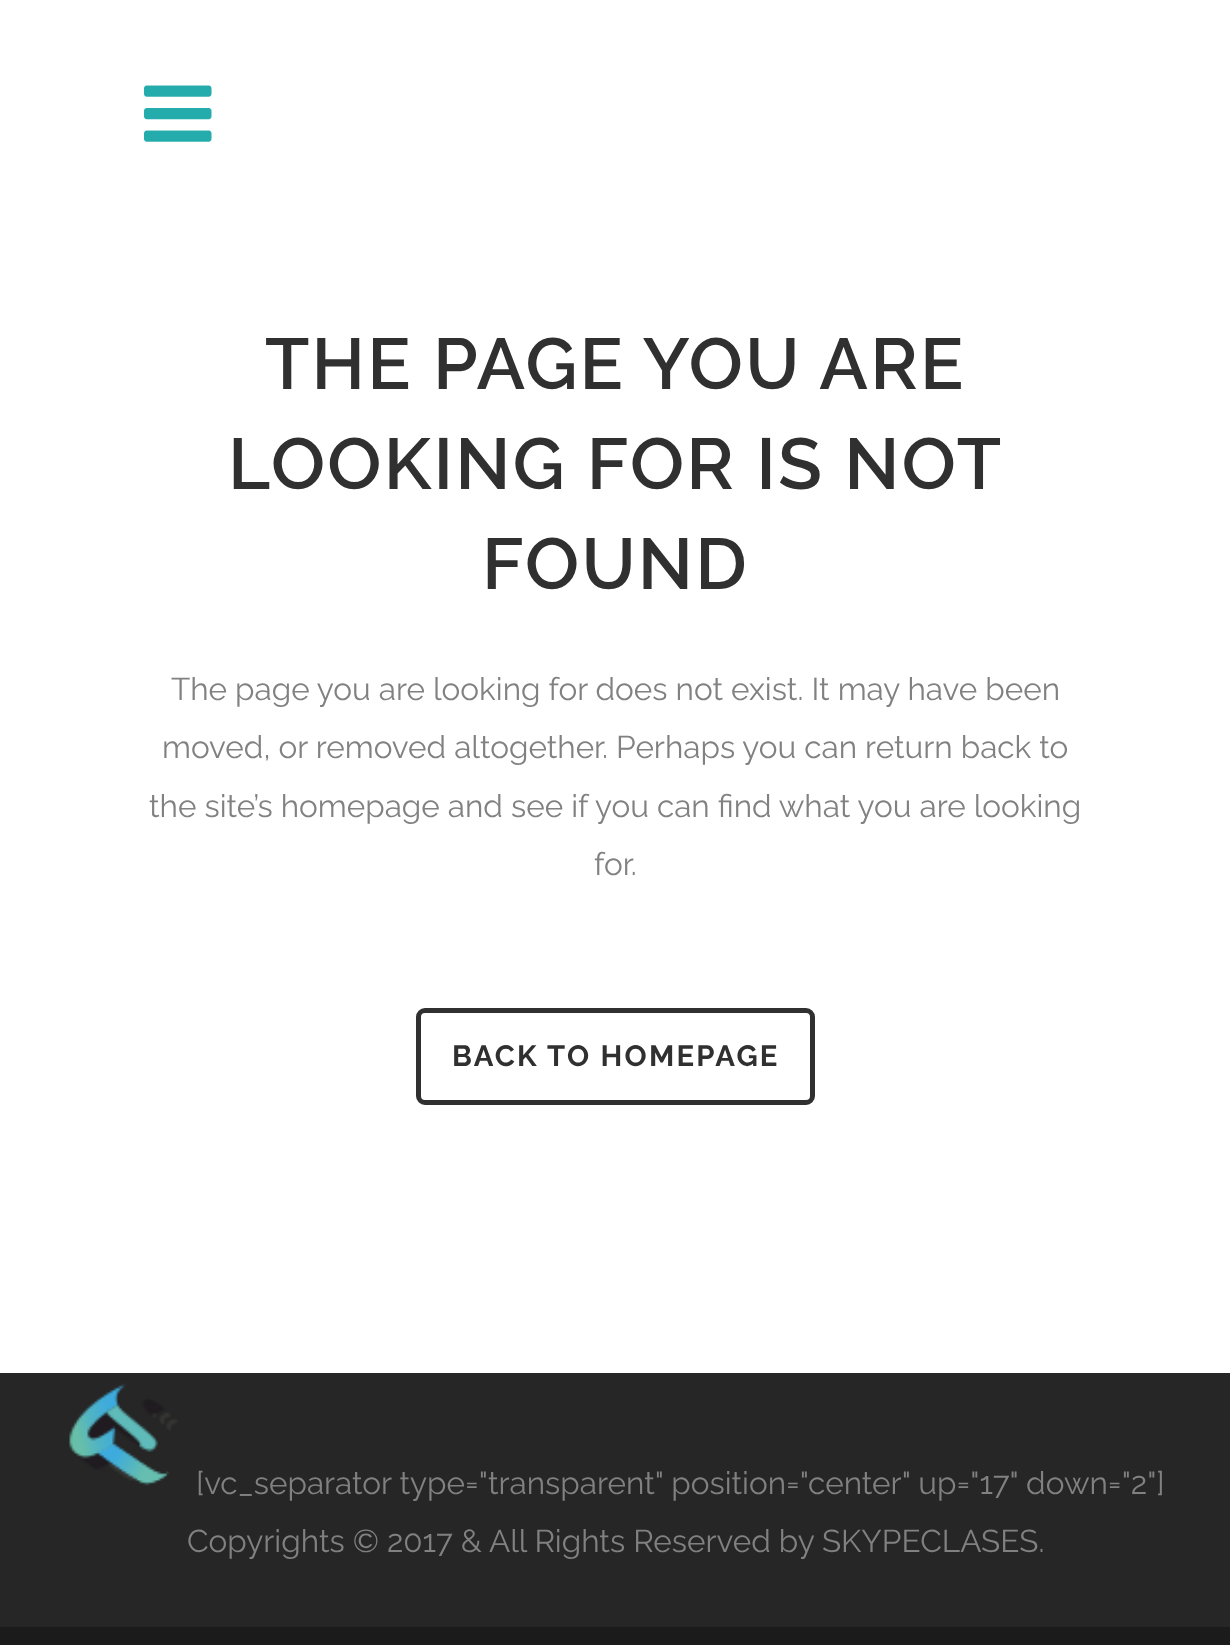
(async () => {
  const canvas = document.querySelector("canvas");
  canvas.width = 1230;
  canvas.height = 1645;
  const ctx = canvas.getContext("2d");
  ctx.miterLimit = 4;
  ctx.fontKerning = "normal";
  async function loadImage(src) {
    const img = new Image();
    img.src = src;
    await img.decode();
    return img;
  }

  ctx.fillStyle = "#ffffff";
  ctx.fillRect(0, 0, 1230, 1645);
  ctx.drawImage(await loadImage("img/1.png"), 144, 85, 68, 57);
  ctx.beginPath();
  ctx.roundRect(418.5, 1010.5, 394, 92, 6.5);
  ctx.strokeStyle = "#303030";
  ctx.lineWidth = 5;
  ctx.stroke();
  ctx.fillStyle = "#262626";
  ctx.fillRect(0, 1373, 1230, 254);
  ctx.drawImage(await loadImage("img/2.png"), 69, 1383, 109, 103);
  ctx.fillStyle = "#1b1b1b";
  ctx.fillRect(0, 1627, 1230, 18);
  ctx.letterSpacing = "2.25px";
  ctx.font = "600 72px Raleway";
  ctx.fillStyle = "#303030";
  for (const [text, x, y] of [
    ["THE PAGE YOU ARE", 265, 389],
    ["LOOKING FOR IS NOT", 228, 489],
    ["FOUND", 482, 589],
  ]) {
    ctx.fillText(text, x, y);
  }
  ctx.letterSpacing = "0px";
  ctx.font = "31.5px Raleway";
  ctx.fillStyle = "#818181";
  for (const [text, x, y] of [
    ["The page you are looking for does not exist. It may have been", 171, 700],
    ["moved, or removed altogether. Perhaps you can return back to", 162, 758],
    ["the site’s homepage and see if you can find what you are looking", 149, 817],
    ["for.", 594, 875],
  ]) {
    ctx.fillText(text, x, y);
  }
  ctx.letterSpacing = "2.25px";
  ctx.font = "bold 29.25px Raleway";
  ctx.fillStyle = "#303030";
  ctx.fillText("BACK TO HOMEPAGE", 452, 1066);
  ctx.letterSpacing = "0px";
  ctx.font = "31.5px Raleway";
  ctx.fillStyle = "#818181";
  ctx.fillText("[vc_separator type=\"transparent\" position=\"center\" up=\"17\" down=\"2\"]", 196, 1494);
  ctx.fillText("Copyrights © 2017 & All Rights Reserved by SKYPECLASES.", 187, 1552);
})();
